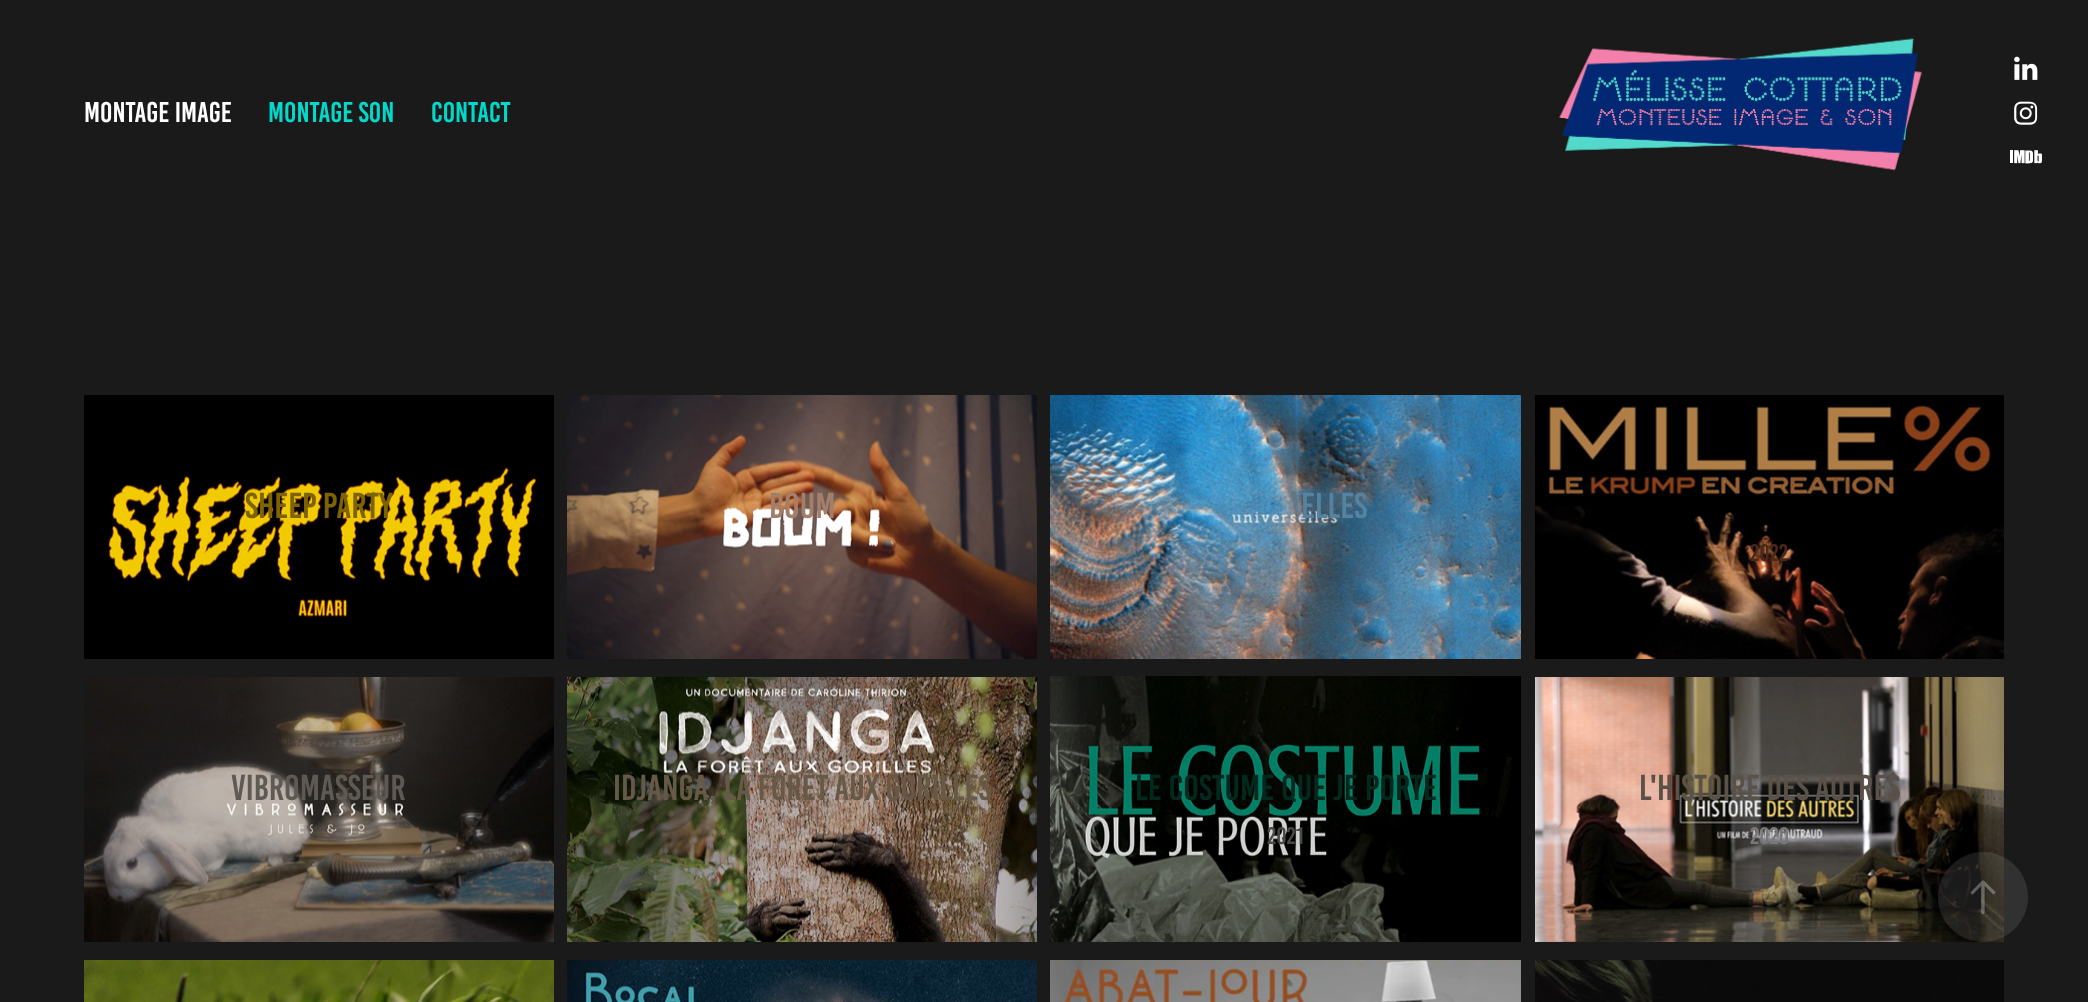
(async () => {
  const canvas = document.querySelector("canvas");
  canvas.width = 2088;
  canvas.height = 1002;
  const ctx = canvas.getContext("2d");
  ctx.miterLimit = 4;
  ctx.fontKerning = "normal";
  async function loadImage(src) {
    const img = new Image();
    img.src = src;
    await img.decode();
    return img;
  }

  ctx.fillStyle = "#1a1a1a";
  ctx.fillRect(0, 0, 2088, 1002);
  ctx.drawImage(await loadImage("img/1.png"), 1559, 38, 363, 133);
  ctx.drawImage(await loadImage("img/2.png"), 2014, 56, 24, 24);
  ctx.drawImage(await loadImage("img/3.png"), 2014, 101, 24, 24);
  ctx.drawImage(await loadImage("img/4.png"), 2010, 150, 32, 14);
  ctx.drawImage(await loadImage("img/5.png"), 84, 395, 470, 264);
  ctx.drawImage(await loadImage("img/6.png"), 567, 395, 470, 264);
  ctx.drawImage(await loadImage("img/7.png"), 1050, 395, 471, 264);
  ctx.drawImage(await loadImage("img/8.png"), 1535, 395, 469, 264);
  ctx.drawImage(await loadImage("img/9.png"), 84, 677, 470, 265);
  ctx.drawImage(await loadImage("img/10.png"), 567, 677, 470, 265);
  ctx.drawImage(await loadImage("img/11.png"), 1050, 676, 471, 266);
  ctx.drawImage(await loadImage("img/12.png"), 1535, 677, 469, 265);
  ctx.drawImage(await loadImage("img/13.png"), 84, 960, 470, 42);
  ctx.drawImage(await loadImage("img/14.png"), 567, 960, 470, 42);
  ctx.drawImage(await loadImage("img/15.png"), 1050, 960, 471, 42);
  ctx.drawImage(await loadImage("img/16.png"), 1535, 960, 469, 42);
  ctx.fillStyle = "rgba(255, 255, 255, 0.1)";
  ctx.beginPath();
  ctx.arc(1983, 897, 45, 0, Math.PI * 2);
  ctx.fill();
  ctx.drawImage(await loadImage("img/17.png"), 1970, 880, 26, 35);
  ctx.font = "28.5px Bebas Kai";
  ctx.fillStyle = "#ffffff";
  ctx.fillText("MONTAGE IMAGE", 84, 122);
  ctx.fillStyle = "#00dacc";
  ctx.fillText("MONTAGE SON", 268, 122);
  ctx.fillText("CONTACT", 431, 122);
  ctx.font = "36px Bebas Kai";
  ctx.fillStyle = "#7e6401";
  ctx.fillText("SHEEP PARTY", 245, 518);
  ctx.fillStyle = "#a27e6b";
  ctx.fillText("BOUM", 769, 518);
  ctx.fillStyle = "#5582a0";
  ctx.fillText("ELLES", 1301, 518);
  ctx.font = "24px Bebas Kai";
  ctx.fillStyle = "#492919";
  ctx.fillText("2022", 1750, 561);
  ctx.font = "36px Bebas Kai";
  ctx.fillStyle = "#5f5954";
  ctx.fillText("VIBROMASSEUR", 231, 800);
  ctx.fillStyle = "#665948";
  ctx.fillText("IDJANGA, LA FORÊT AUX GORILLES", 613, 800);
  ctx.fillStyle = "#03291e";
  ctx.fillText("LE COSTUME QUE JE PORTE", 1135, 800);
  ctx.font = "24px Bebas Kai";
  ctx.fillStyle = "#494948";
  ctx.fillText("2021", 1267, 844);
  ctx.font = "36px Bebas Kai";
  ctx.fillStyle = "#5a5149";
  ctx.fillText("L'HISTOIRE DES AUTRES", 1639, 800);
  ctx.font = "24px Bebas Kai";
  ctx.fillStyle = "#797879";
  ctx.fillText("2020", 1750, 844);
})();
